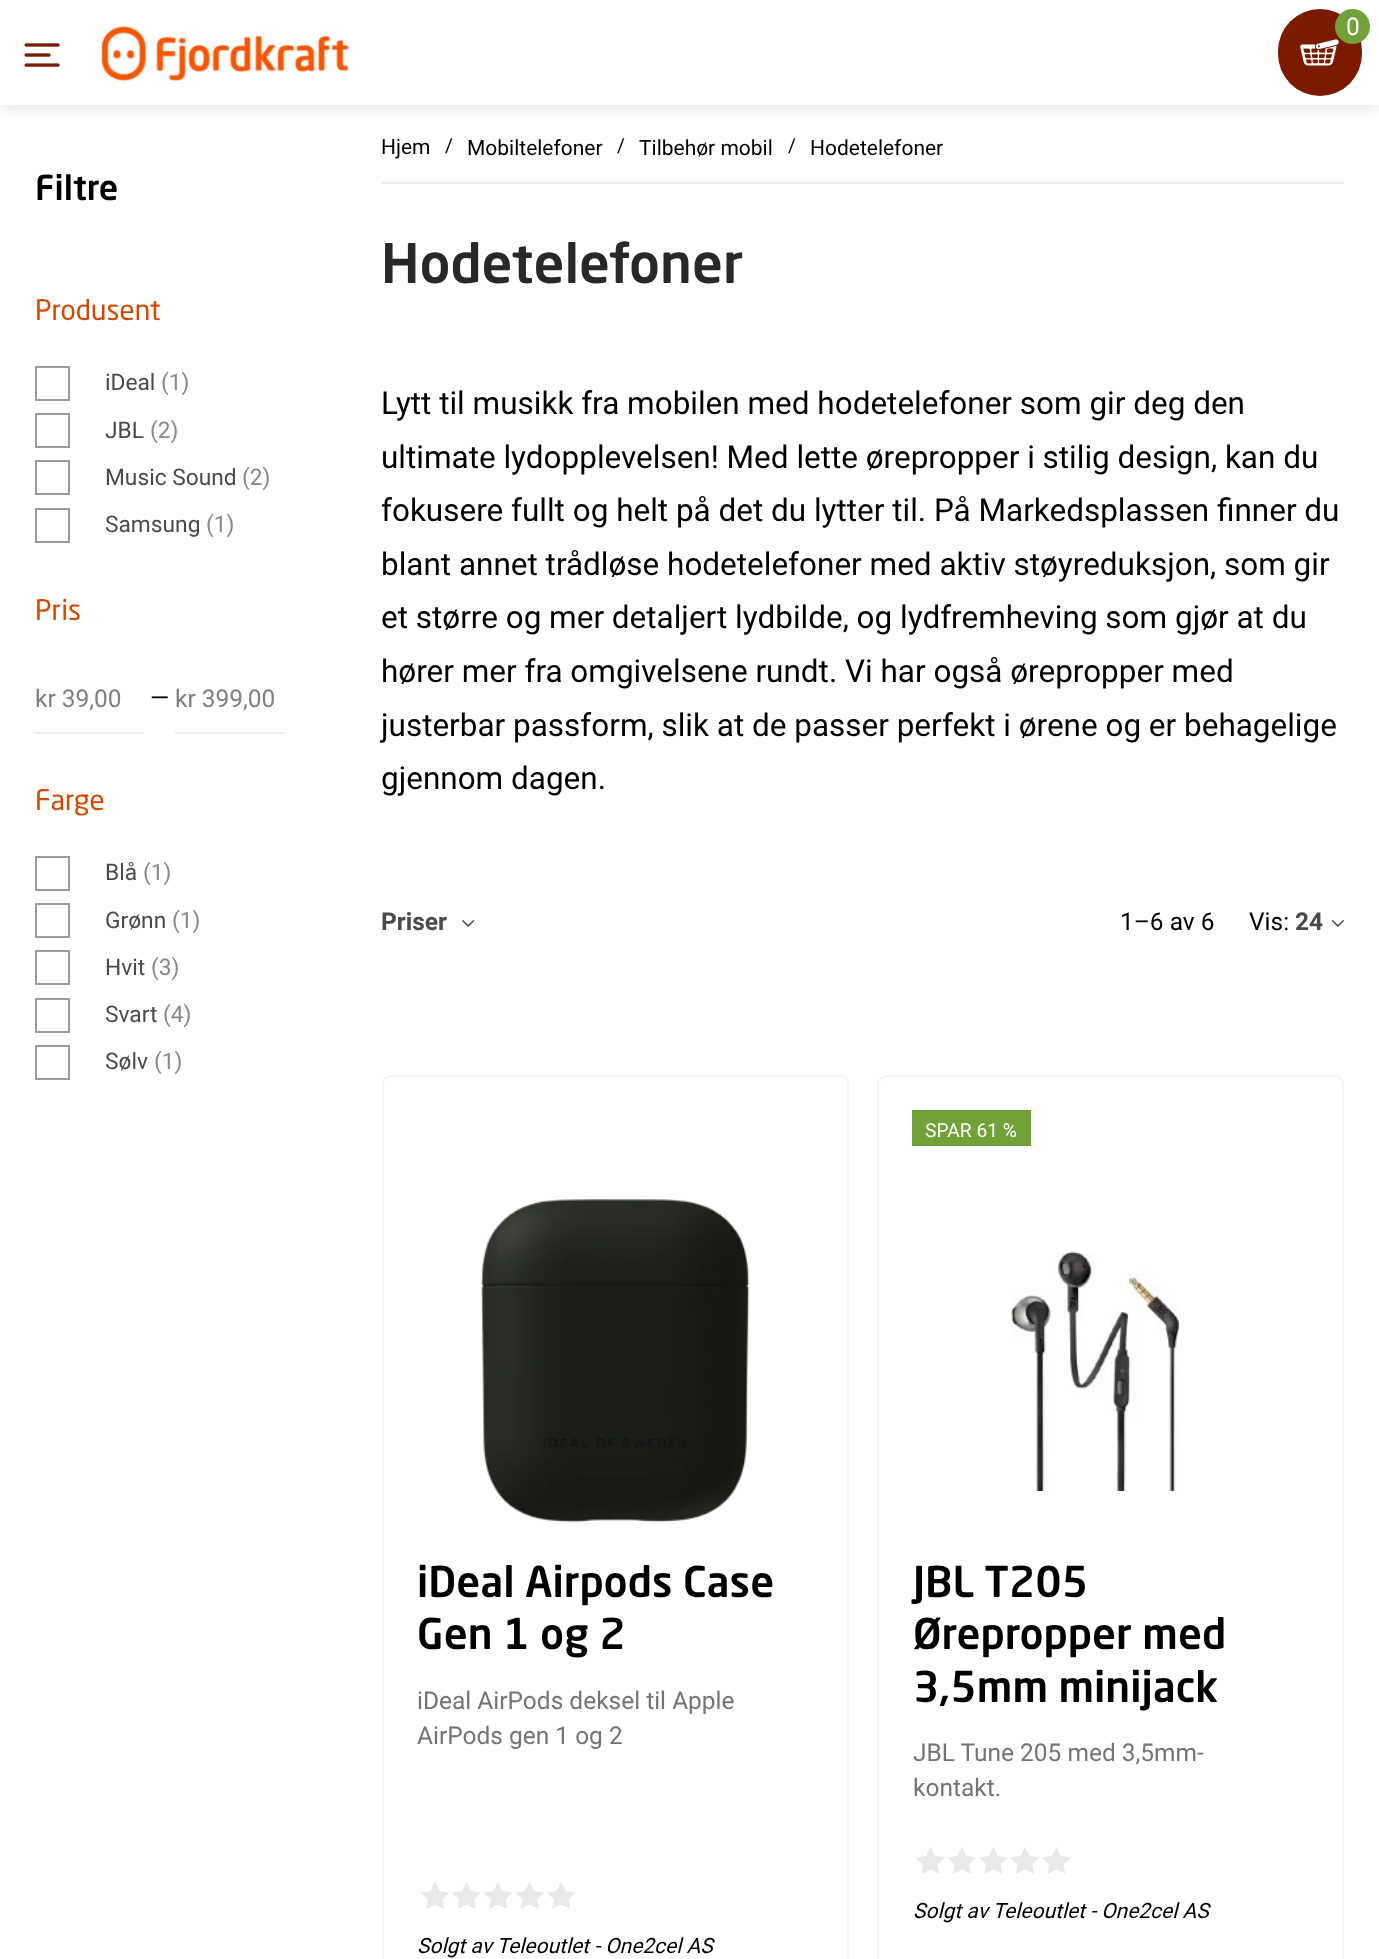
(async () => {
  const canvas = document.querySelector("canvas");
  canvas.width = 1379;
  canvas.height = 1959;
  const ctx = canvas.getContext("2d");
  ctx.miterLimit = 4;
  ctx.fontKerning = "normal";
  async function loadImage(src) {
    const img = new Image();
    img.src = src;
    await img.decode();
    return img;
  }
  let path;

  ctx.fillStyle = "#ffffff";
  ctx.fillRect(0, 0, 1379, 1959);
  ctx.save();
  ctx.beginPath();
  ctx.rect(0, 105, 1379, 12);
  ctx.clip();
  ctx.fillStyle = "rgba(74, 73, 74, 0.2)";
  ctx.filter = "blur(9px)";
  ctx.beginPath();
  ctx.rect(0, 0, 1379, 105);
  ctx.fill();
  ctx.filter = "none";
  ctx.restore();
  ctx.drawImage(await loadImage("img/1.png"), 24, 43, 36, 24);
  ctx.drawImage(await loadImage("img/2.png"), 101, 26, 248, 55);
  ctx.fillStyle = "#7c1a00";
  ctx.beginPath();
  ctx.roundRect(1278, 9, 84, 87, 42);
  ctx.fill();
  ctx.drawImage(await loadImage("img/3.png"), 1300, 39, 39, 27);
  ctx.fillStyle = "#72a138";
  ctx.beginPath();
  ctx.arc(1352.5, 26.5, 17.5, 0, Math.PI * 2);
  ctx.fill();
  ctx.strokeStyle = "#9b9b9b";
  ctx.lineWidth = 2;
  ctx.strokeRect(36, 367, 33, 33);
  ctx.strokeRect(36, 414, 33, 33);
  ctx.strokeRect(36, 461, 33, 33);
  ctx.strokeRect(36, 509, 33, 33);
  ctx.fillStyle = "#e8e9e9";
  ctx.fillRect(35, 732, 109, 2);
  ctx.fillRect(175, 732, 109, 2);
  ctx.strokeRect(36, 857, 33, 33);
  ctx.strokeRect(36, 904, 33, 33);
  ctx.strokeRect(36, 951, 33, 33);
  ctx.strokeRect(36, 999, 33, 33);
  ctx.strokeRect(36, 1046, 33, 33);
  ctx.fillRect(382, 182, 962, 2);
  ctx.drawImage(await loadImage("img/4.png"), 462, 920, 13, 7);
  ctx.drawImage(await loadImage("img/5.png"), 1331, 920, 13, 7);
  ctx.beginPath();
  ctx.roundRect(383, 1076, 465, 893, 8);
  ctx.strokeStyle = "#f5f5f5";
  ctx.stroke();
  ctx.drawImage(await loadImage("img/6.png"), 480, 1199, 270, 324);
  path = new Path2D("M435 1904.5L426 1909L428 1899.5L420.5 1892.5L430.5 1891L435 1882L439.5 1891L449.5 1892.5L442.5 1899.5L444 1909ZM466.5 1904.5L457.5 1909L459.5 1899.5L452 1892.5L462 1891L466.5 1882L471 1891L481 1892.5L474 1899.5L475.5 1909Z");
  ctx.fill(path);
  path = new Path2D("M498 1904.5L489 1909L491 1899.5L483.5 1892.5L493.5 1891L498 1882L502.5 1891L512.5 1892.5L505.5 1899.5L507 1909ZM529.5 1904.5L520.5 1909L522.5 1899.5L515 1892.5L525 1891L529.5 1882L534 1891L544 1892.5L537 1899.5L538.5 1909Z");
  ctx.fill(path);
  path = new Path2D("M561 1904.5L552 1909L554 1899.5L546.5 1892.5L556.5 1891L561 1882L565.5 1891L575.5 1892.5L568.5 1899.5L570 1909Z");
  ctx.fill(path);
  ctx.beginPath();
  ctx.roundRect(878, 1076, 465, 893, 8);
  ctx.stroke();
  ctx.fillStyle = "#72a138";
  ctx.fillRect(912, 1110, 119, 36);
  ctx.drawImage(await loadImage("img/7.png"), 1011, 1250, 169, 241);
  ctx.fillStyle = "#e8e9e9";
  path = new Path2D("M930.5 1869.5L921.5 1874L923 1864.5L916 1857.5L926 1856L930.5 1847L935 1856L945 1857.5L937.5 1864.5L939.5 1874ZM962 1869.5L953 1874L954.5 1864.5L947.5 1857.5L957.5 1856L962 1847L966.5 1856L976.5 1857.5L969 1864.5L971 1874Z");
  ctx.fill(path);
  path = new Path2D("M993.5 1869.5L984.5 1874L986 1864.5L979 1857.5L989 1856L993.5 1847L998 1856L1008 1857.5L1000.5 1864.5L1002.5 1874ZM1025 1869.5L1016 1874L1017.5 1864.5L1010.5 1857.5L1020.5 1856L1025 1847L1029.5 1856L1039.5 1857.5L1032 1864.5L1034 1874Z");
  ctx.fill(path);
  path = new Path2D("M1056.5 1869.5L1047.5 1874L1049 1864.5L1042 1857.5L1052 1856L1056.5 1847L1061 1856L1071 1857.5L1063.5 1864.5L1065.5 1874Z");
  ctx.fill(path);
  ctx.font = "24.5px Roboto";
  ctx.fillStyle = "#ffffff";
  ctx.fillText("0", 1346, 35);
  ctx.font = "500 34px 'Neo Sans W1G'";
  ctx.fillStyle = "#000000";
  ctx.fillText("Filtre", 35, 200);
  ctx.font = "28px 'Neo Sans W1G'";
  ctx.fillStyle = "#d34700";
  ctx.fillText("Produsent", 35, 320);
  ctx.font = "22.75px Roboto";
  ctx.fillStyle = "#4a4a4a";
  ctx.fillText("iDeal", 105, 390);
  ctx.fillStyle = "#888888";
  ctx.fillText("(1)", 161, 390);
  ctx.fillStyle = "#4a4a4a";
  ctx.fillText("JBL", 105, 438);
  ctx.fillStyle = "#888888";
  ctx.fillText("(2)", 150, 438);
  ctx.fillStyle = "#4a4a4a";
  ctx.fillText("Music Sound", 105, 485);
  ctx.fillStyle = "#888888";
  ctx.fillText("(2)", 242, 485);
  ctx.fillStyle = "#4a4a4a";
  ctx.fillText("Samsung", 105, 532);
  ctx.fillStyle = "#888888";
  ctx.fillText("(1)", 206, 532);
  ctx.font = "28px 'Neo Sans W1G'";
  ctx.fillStyle = "#d34700";
  ctx.fillText("Pris", 35, 620);
  ctx.font = "24.5px Roboto";
  ctx.fillStyle = "#808080";
  ctx.fillText("kr 39,00", 35, 707);
  ctx.fillStyle = "#000000";
  ctx.fillText("—", 150, 706);
  ctx.fillStyle = "#808080";
  ctx.fillText("kr 399,00", 175, 707);
  ctx.font = "28px 'Neo Sans W1G'";
  ctx.fillStyle = "#d34700";
  ctx.fillText("Farge", 35, 810);
  ctx.font = "22.75px Roboto";
  ctx.fillStyle = "#4a4a4a";
  ctx.fillText("Blå", 105, 880);
  ctx.fillStyle = "#888888";
  ctx.fillText("(1)", 143, 880);
  ctx.fillStyle = "#4a4a4a";
  ctx.fillText("Grønn", 105, 928);
  ctx.fillStyle = "#888888";
  ctx.fillText("(1)", 172, 928);
  ctx.fillStyle = "#4a4a4a";
  ctx.fillText("Hvit", 105, 975);
  ctx.fillStyle = "#888888";
  ctx.fillText("(3)", 151, 975);
  ctx.fillStyle = "#4a4a4a";
  ctx.fillText("Svart", 105, 1022);
  ctx.fillStyle = "#888888";
  ctx.fillText("(4)", 163, 1022);
  ctx.fillStyle = "#4a4a4a";
  ctx.fillText("Sølv", 105, 1069);
  ctx.fillStyle = "#888888";
  ctx.fillText("(1)", 154, 1069);
  ctx.font = "21px Roboto";
  ctx.fillStyle = "#000000";
  ctx.fillText("Hjem", 381, 154);
  ctx.font = "19.25px Roboto";
  ctx.fillText("/", 445, 152);
  ctx.font = "21px Roboto";
  ctx.fillText("Mobiltelefoner", 467, 155);
  ctx.font = "19.25px Roboto";
  ctx.fillText("/", 617, 152);
  ctx.font = "21px Roboto";
  ctx.fillText("Tilbehør mobil", 639, 155);
  ctx.font = "19.25px Roboto";
  ctx.fillText("/", 788, 152);
  ctx.font = "21px Roboto";
  ctx.fillText("Hodetelefoner", 810, 155);
  ctx.font = "500 54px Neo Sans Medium";
  ctx.fillStyle = "#282828";
  ctx.fillText("Hodetelefoner", 381, 283);
  ctx.font = "31.5px Roboto";
  ctx.fillStyle = "#000000";
  for (const [text, x, y] of [
    ["Lytt til musikk fra mobilen med hodetelefoner som gir deg den", 381, 414],
    ["ultimate lydopplevelsen! Med lette ørepropper i stilig design, kan du", 381, 468],
    ["fokusere fullt og helt på det du lytter til. På Markedsplassen finner du", 381, 521],
    ["blant annet trådløse hodetelefoner med aktiv støyreduksjon, som gir", 381, 575],
    ["et større og mer detaljert lydbilde, og lydfremheving som gjør at du", 381, 628],
    ["hører mer fra omgivelsene rundt. Vi har også ørepropper med", 381, 682],
    ["justerbar passform, slik at de passer perfekt i ørene og er behagelige", 381, 736],
    ["gjennom dagen.", 381, 789],
  ]) {
    ctx.fillText(text, x, y);
  }
  ctx.font = "bold 24.5px Roboto";
  ctx.fillStyle = "#4a4a4a";
  ctx.fillText("Priser", 381, 930);
  ctx.font = "24.5px Roboto";
  ctx.fillStyle = "#000000";
  ctx.fillText("1–6 av 6", 1120, 930);
  ctx.fillText("Vis:", 1249, 930);
  ctx.font = "bold 24.5px Roboto";
  ctx.fillStyle = "#4a4a4a";
  ctx.fillText("24", 1295, 930);
  ctx.font = "500 42px 'Neo Sans W1G'";
  ctx.fillStyle = "#000000";
  ctx.fillText("iDeal Airpods Case", 417, 1597);
  ctx.fillText("Gen 1 og 2", 417, 1649);
  ctx.font = "24.5px Roboto";
  ctx.fillStyle = "#747474";
  ctx.fillText("iDeal AirPods deksel til Apple", 417, 1709);
  ctx.fillText("AirPods gen 1 og 2", 417, 1744);
  ctx.font = "italic 21px Roboto";
  ctx.fillStyle = "#000000";
  ctx.fillText("Solgt av Teleoutlet - One2cel AS", 417, 1953);
  ctx.font = "19.25px Roboto";
  ctx.fillStyle = "#ffffff";
  ctx.fillText("SPAR 61 %", 925, 1137);
  ctx.font = "500 42px 'Neo Sans W1G'";
  ctx.fillStyle = "#000000";
  for (const [text, x, y] of [
    ["JBL T205", 913, 1597],
    ["Ørepropper med", 913, 1649],
    ["3,5mm minijack", 913, 1702],
  ]) {
    ctx.fillText(text, x, y);
  }
  ctx.font = "24.5px Roboto";
  ctx.fillStyle = "#747474";
  ctx.fillText("JBL Tune 205 med 3,5mm-", 913, 1761);
  ctx.fillText("kontakt.", 913, 1796);
  ctx.font = "italic 21px Roboto";
  ctx.fillStyle = "#000000";
  ctx.fillText("Solgt av Teleoutlet - One2cel AS", 913, 1918);
})();
